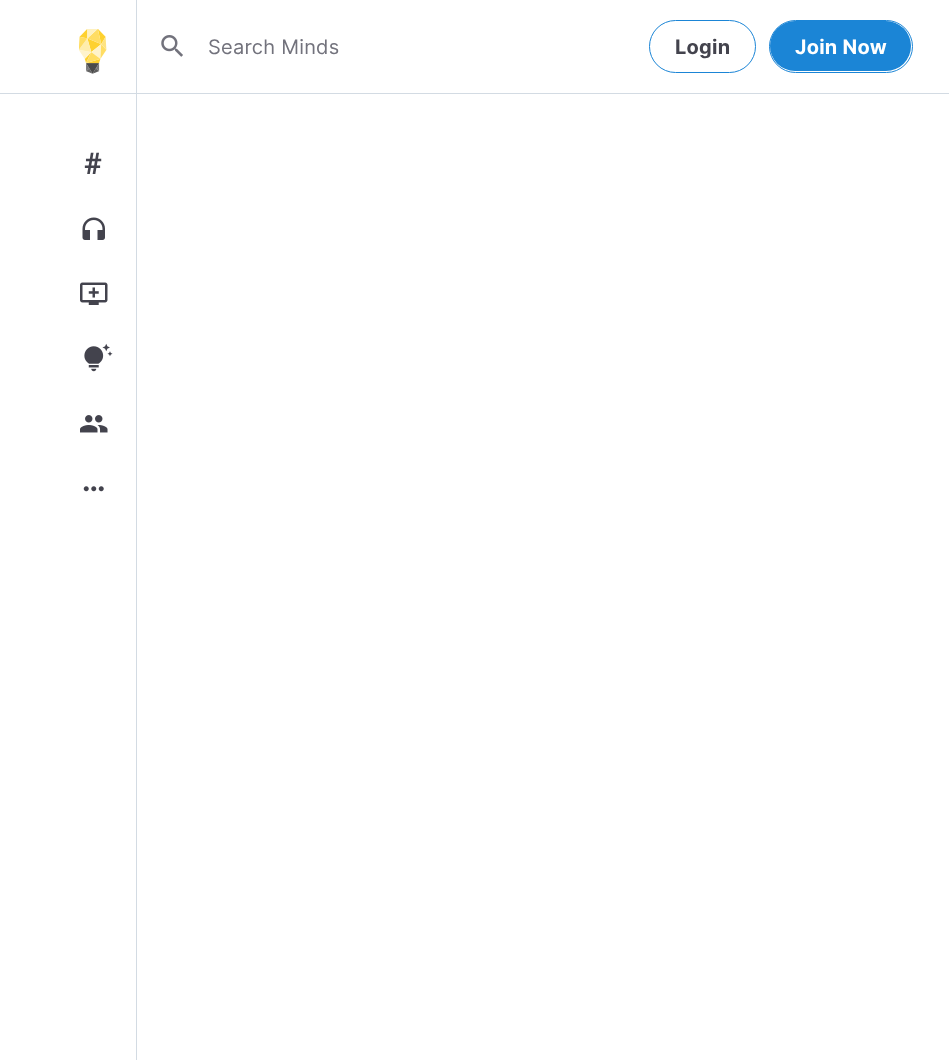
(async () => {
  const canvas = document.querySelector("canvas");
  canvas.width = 949;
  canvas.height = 1060;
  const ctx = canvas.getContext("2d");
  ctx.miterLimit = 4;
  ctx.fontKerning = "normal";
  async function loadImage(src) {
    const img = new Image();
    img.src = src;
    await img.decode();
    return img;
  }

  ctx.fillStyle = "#ffffff";
  ctx.fillRect(0, 0, 949, 1060);
  ctx.fillStyle = "#d3dbe3";
  ctx.fillRect(0, 93, 949, 1);
  ctx.fillRect(136, 0, 1, 93);
  ctx.drawImage(await loadImage("img/1.png"), 79, 29, 28, 45);
  ctx.drawImage(await loadImage("img/2.png"), 161, 35, 22, 22);
  ctx.beginPath();
  ctx.roundRect(649.5, 20.5, 106, 52, 26);
  ctx.strokeStyle = "#1b85d6";
  ctx.stroke();
  ctx.fillStyle = "#1b85d6";
  ctx.beginPath();
  ctx.roundRect(770, 21, 141, 50, 25);
  ctx.fill();
  ctx.beginPath();
  ctx.roundRect(769.5, 20.5, 143, 52, 26);
  ctx.stroke();
  ctx.fillStyle = "#d3dbe3";
  ctx.fillRect(136, 94, 1, 966);
  ctx.drawImage(await loadImage("img/3.png"), 82, 217, 23, 23);
  ctx.drawImage(await loadImage("img/4.png"), 80, 282, 28, 23);
  ctx.drawImage(await loadImage("img/5.png"), 84, 343, 29, 29);
  ctx.drawImage(await loadImage("img/6.png"), 80, 415, 28, 18);
  ctx.drawImage(await loadImage("img/7.png"), 83, 486, 21, 6);
  ctx.letterSpacing = "0.25px";
  ctx.font = "20px Inter";
  ctx.fillStyle = "#72727c";
  ctx.fillText("Search Minds", 208, 54);
  ctx.font = "bold 20px Inter";
  ctx.fillStyle = "#43434d";
  ctx.fillText("Login", 675, 54);
  ctx.fillStyle = "#ffffff";
  ctx.fillText("Join Now", 795, 54);
  ctx.letterSpacing = "0px";
  ctx.font = "bold 30px Roboto";
  ctx.fillStyle = "#43434d";
  ctx.fillText("#", 84, 174);
})();
